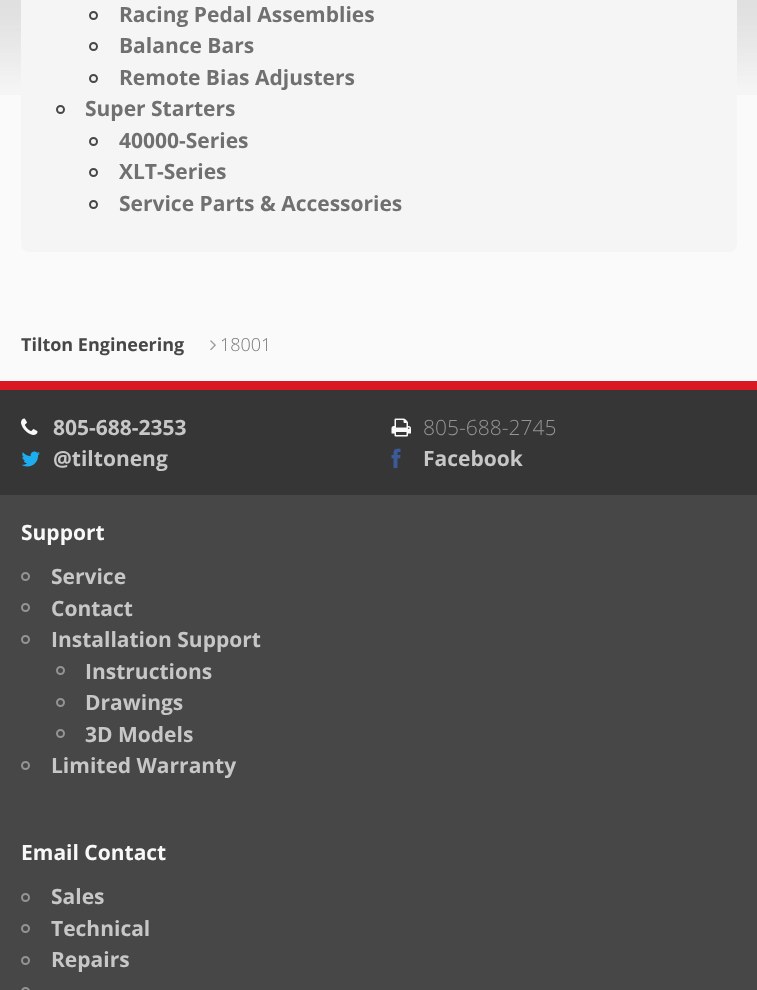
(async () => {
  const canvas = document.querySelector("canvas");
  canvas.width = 757;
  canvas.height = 990;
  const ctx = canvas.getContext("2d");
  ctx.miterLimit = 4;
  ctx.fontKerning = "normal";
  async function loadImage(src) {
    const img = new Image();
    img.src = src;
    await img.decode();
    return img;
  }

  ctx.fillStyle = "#fafafa";
  ctx.fillRect(0, 0, 757, 990);
  ctx.drawImage(await loadImage("img/1.png"), 0, 0, 757, 95);
  ctx.fillStyle = "#f5f5f5";
  ctx.beginPath();
  ctx.roundRect(21, -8, 716, 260, 8);
  ctx.fill();
  ctx.beginPath();
  ctx.arc(93.5, 15.5, 3.5, 0, Math.PI * 2);
  ctx.strokeStyle = "#474747";
  ctx.lineWidth = 2;
  ctx.stroke();
  ctx.beginPath();
  ctx.arc(93.5, 46.5, 3.5, 0, Math.PI * 2);
  ctx.stroke();
  ctx.beginPath();
  ctx.arc(93.5, 78.5, 3.5, 0, Math.PI * 2);
  ctx.stroke();
  ctx.beginPath();
  ctx.arc(60.5, 109.5, 3.5, 0, Math.PI * 2);
  ctx.stroke();
  ctx.beginPath();
  ctx.arc(93.5, 141.5, 3.5, 0, Math.PI * 2);
  ctx.stroke();
  ctx.beginPath();
  ctx.arc(93.5, 172.5, 3.5, 0, Math.PI * 2);
  ctx.stroke();
  ctx.beginPath();
  ctx.arc(93.5, 204.5, 3.5, 0, Math.PI * 2);
  ctx.stroke();
  ctx.drawImage(await loadImage("img/2.png"), 210, 340, 6, 11);
  ctx.fillStyle = "#363636";
  ctx.fillRect(0, 390, 757, 105);
  ctx.fillStyle = "#d91823";
  ctx.fillRect(0, 381, 757, 9);
  ctx.drawImage(await loadImage("img/3.png"), 21, 418, 17, 17);
  ctx.drawImage(await loadImage("img/4.png"), 391, 418, 20, 19);
  ctx.drawImage(await loadImage("img/5.png"), 21, 451, 19, 16);
  ctx.drawImage(await loadImage("img/6.png"), 391, 448, 10, 20);
  ctx.fillStyle = "#474747";
  ctx.fillRect(0, 495, 757, 495);
  ctx.beginPath();
  ctx.arc(25.5, 576.5, 3.5, 0, Math.PI * 2);
  ctx.strokeStyle = "#949494";
  ctx.stroke();
  ctx.beginPath();
  ctx.arc(25.5, 607.5, 3.5, 0, Math.PI * 2);
  ctx.stroke();
  ctx.beginPath();
  ctx.arc(25.5, 639.5, 3.5, 0, Math.PI * 2);
  ctx.stroke();
  ctx.beginPath();
  ctx.arc(60.5, 670.5, 3.5, 0, Math.PI * 2);
  ctx.stroke();
  ctx.beginPath();
  ctx.arc(60.5, 702.5, 3.5, 0, Math.PI * 2);
  ctx.stroke();
  ctx.beginPath();
  ctx.arc(60.5, 733.5, 3.5, 0, Math.PI * 2);
  ctx.stroke();
  ctx.beginPath();
  ctx.arc(25.5, 765.5, 3.5, 0, Math.PI * 2);
  ctx.stroke();
  ctx.beginPath();
  ctx.arc(25.5, 897.5, 3.5, 0, Math.PI * 2);
  ctx.stroke();
  ctx.beginPath();
  ctx.arc(25.5, 928.5, 3.5, 0, Math.PI * 2);
  ctx.stroke();
  ctx.beginPath();
  ctx.arc(25.5, 960.5, 3.5, 0, Math.PI * 2);
  ctx.stroke();
  ctx.beginPath();
  ctx.arc(25.5, 991.5, 3.5, 0, Math.PI * 2);
  ctx.stroke();
  ctx.font = "bold 21px Open Sans";
  ctx.fillStyle = "#707070";
  for (const [text, x, y] of [
    ["Racing Pedal Assemblies", 119, 22],
    ["Balance Bars", 119, 53],
    ["Remote Bias Adjusters", 119, 85],
    ["Super Starters", 85, 116],
    ["40000-Series", 119, 148],
    ["XLT-Series", 119, 179],
    ["Service Parts & Accessories", 119, 211],
  ]) {
    ctx.fillText(text, x, y);
  }
  ctx.font = "bold 18px Open Sans";
  ctx.fillStyle = "#474747";
  ctx.fillText("Tilton Engineering", 21, 351);
  ctx.font = "300 18px Open Sans";
  ctx.fillStyle = "#7a7a7a";
  ctx.fillText("18001", 220, 351);
  ctx.font = "bold 21px Open Sans";
  ctx.fillStyle = "#c7c7c7";
  ctx.fillText("805-688-2353", 53, 435);
  ctx.font = "300 21px Open Sans";
  ctx.fillStyle = "#949494";
  ctx.fillText("805-688-2745", 423, 435);
  ctx.font = "bold 21px Open Sans";
  ctx.fillStyle = "#c7c7c7";
  ctx.fillText("@tiltoneng", 53, 466);
  ctx.fillText("Facebook", 423, 466);
  ctx.fillStyle = "#f8f8f8";
  ctx.fillText("Support", 21, 540);
  ctx.fillStyle = "#c7c7c7";
  for (const [text, x, y] of [
    ["Service", 51, 584],
    ["Contact", 51, 616],
    ["Installation Support", 51, 647],
    ["Instructions", 85, 679],
    ["Drawings", 85, 710],
    ["3D Models", 85, 742],
    ["Limited Warranty", 51, 773],
  ]) {
    ctx.fillText(text, x, y);
  }
  ctx.fillStyle = "#f8f8f8";
  ctx.fillText("Email Contact", 21, 860);
  ctx.fillStyle = "#c7c7c7";
  for (const [text, x, y] of [
    ["Sales", 51, 904],
    ["Technical", 51, 936],
    ["Repairs", 51, 967],
  ]) {
    ctx.fillText(text, x, y);
  }
})();
